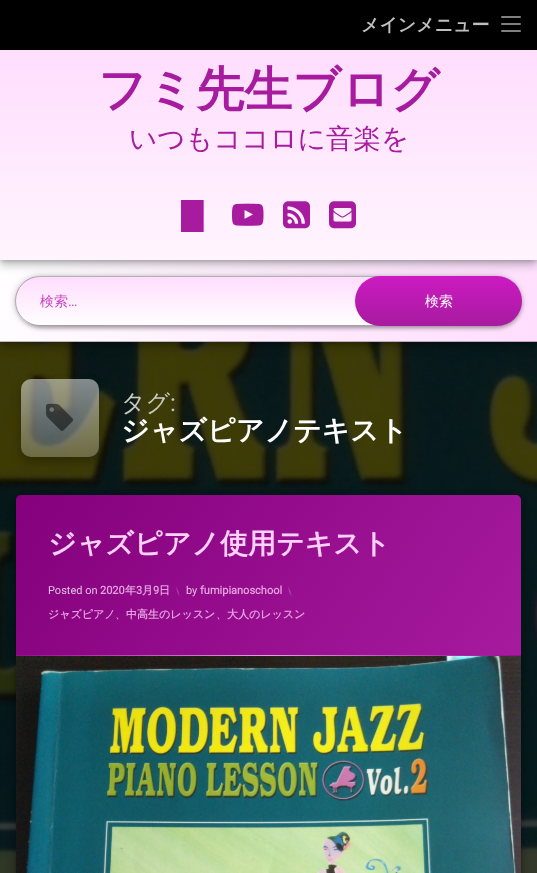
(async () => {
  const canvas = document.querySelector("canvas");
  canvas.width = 537;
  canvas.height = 873;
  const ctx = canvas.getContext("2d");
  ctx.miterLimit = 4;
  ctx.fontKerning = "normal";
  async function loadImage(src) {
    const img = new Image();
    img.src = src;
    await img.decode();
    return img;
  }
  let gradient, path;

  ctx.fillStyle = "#ffffff";
  ctx.fillRect(0, 0, 537, 873);
  ctx.drawImage(await loadImage("img/1.png"), 0, 342, 537, 531);
  ctx.fillStyle = "rgba(0, 0, 0, 0.25)";
  ctx.filter = "blur(2.5px)";
  ctx.beginPath();
  ctx.rect(0, 260, 537, 82);
  ctx.fill();
  ctx.filter = "none";
  ctx.filter = "blur(5px)";
  ctx.beginPath();
  ctx.rect(0, 265, 537, 82);
  ctx.fill();
  ctx.filter = "none";
  gradient = ctx.createLinearGradient(69, 161, 468, 441);
  gradient.addColorStop(0, "#ffffff");
  gradient.addColorStop(1, "#ffddfd");
  ctx.fillStyle = gradient;
  ctx.fillRect(0, 260, 537, 82);
  ctx.fillStyle = "rgba(0, 0, 0, 0.25)";
  ctx.filter = "blur(2.5px)";
  ctx.beginPath();
  ctx.rect(0, 50, 537, 210);
  ctx.fill();
  ctx.filter = "none";
  ctx.fillStyle = "rgba(0, 0, 0, 0.3)";
  ctx.filter = "blur(2px)";
  ctx.beginPath();
  ctx.roundRect(17, 278, 505, 50, 25);
  ctx.fill();
  ctx.filter = "none";
  ctx.fillStyle = "rgba(0, 0, 0, 0.2)";
  ctx.filter = "blur(3.5px)";
  ctx.beginPath();
  ctx.roundRect(15, 276, 505, 50, 25);
  ctx.fill();
  ctx.filter = "none";
  ctx.save();
  ctx.beginPath();
  ctx.roundRect(15, 276, 505, 50, 25);
  ctx.clip();
  gradient = ctx.createLinearGradient(268, 229, 268, 277);
  gradient.addColorStop(0, "#ffddfd");
  gradient.addColorStop(1, "#ffffff");
  ctx.fillStyle = gradient;
  ctx.fillRect(33, 276, 469, 1);
  gradient = ctx.createLinearGradient(268, 277, 268, 325);
  gradient.addColorStop(0, "#ffddfd");
  gradient.addColorStop(1, "#ffffff");
  ctx.fillStyle = gradient;
  ctx.fillRect(15, 277, 492, 48);
  gradient = ctx.createLinearGradient(268, 325, 268, 373);
  gradient.addColorStop(0, "#ffddfd");
  gradient.addColorStop(1, "#ffffff");
  ctx.fillStyle = gradient;
  ctx.fillRect(33, 325, 469, 1);
  ctx.restore();
  ctx.beginPath();
  ctx.roundRect(15.5, 276.5, 504, 49, 24.5);
  ctx.strokeStyle = "rgba(0, 0, 0, 0.3)";
  ctx.stroke();
  gradient = ctx.createLinearGradient(439, 276, 439, 326);
  gradient.addColorStop(0, "#cc1ac2");
  gradient.addColorStop(1, "#a71b9f");
  ctx.fillStyle = gradient;
  ctx.beginPath();
  ctx.roundRect(355, 276, 167, 50, 25);
  ctx.fill();
  ctx.fillStyle = "rgba(0, 0, 0, 0.25)";
  ctx.filter = "blur(5px)";
  ctx.beginPath();
  ctx.rect(0, 55, 537, 210);
  ctx.fill();
  ctx.filter = "none";
  ctx.fillStyle = "#000000";
  ctx.fillRect(0, 0, 537, 50);
  ctx.fillStyle = "#808080";
  ctx.beginPath();
  ctx.roundRect(501, 16, 20, 2, 1);
  ctx.fill();
  ctx.beginPath();
  ctx.roundRect(501, 23, 20, 2, 1);
  ctx.fill();
  ctx.beginPath();
  ctx.roundRect(501, 30, 20, 2, 1);
  ctx.fill();
  gradient = ctx.createLinearGradient(269, 50, 269, 260);
  gradient.addColorStop(0, "#ffddfd");
  gradient.addColorStop(1, "#fff5fe");
  ctx.fillStyle = gradient;
  ctx.fillRect(0, 50, 537, 210);
  ctx.drawImage(await loadImage("img/2.png"), 232, 203, 32, 23);
  ctx.drawImage(await loadImage("img/3.png"), 283, 201, 27, 28);
  ctx.drawImage(await loadImage("img/4.png"), 329, 201, 27, 28);
  ctx.fillStyle = "rgba(0, 0, 0, 0.25)";
  ctx.fillRect(0, 341, 537, 1);
  ctx.save();
  path = new Path2D("M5 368H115V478H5ZM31 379H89C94.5 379 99 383.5 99 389V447C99 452.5 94.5 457 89 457H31C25.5 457 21 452.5 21 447V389C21 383.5 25.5 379 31 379Z");
  ctx.clip(path, "evenodd");
  ctx.filter = "blur(5px)";
  ctx.beginPath();
  ctx.roundRect(21, 384, 78, 78, 10);
  ctx.fill();
  ctx.filter = "none";
  ctx.restore();
  gradient = ctx.createLinearGradient(60, 457, 60, 379);
  gradient.addColorStop(0, "rgba(255, 255, 255, 0.25)");
  gradient.addColorStop(1, "rgba(255, 255, 255, 0.5)");
  ctx.fillStyle = gradient;
  ctx.beginPath();
  ctx.roundRect(21, 379, 78, 78, 10);
  ctx.fill();
  ctx.drawImage(await loadImage("img/5.png"), 46, 403, 27, 28);
  ctx.fillStyle = "rgba(0, 0, 0, 0.25)";
  ctx.filter = "blur(2.5px)";
  ctx.beginPath();
  ctx.roundRect(16, 495, 505, 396, 10);
  ctx.fill();
  ctx.filter = "none";
  ctx.filter = "blur(5px)";
  ctx.beginPath();
  ctx.roundRect(16, 500, 505, 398, 10);
  ctx.fill();
  ctx.filter = "none";
  gradient = ctx.createLinearGradient(61, 430, 476, 720);
  gradient.addColorStop(0, "#84007c");
  gradient.addColorStop(1, "#a71b9f");
  ctx.fillStyle = gradient;
  ctx.beginPath();
  ctx.roundRect(16, 495, 505, 160, [5, 5, 0, 0]);
  ctx.fill();
  gradient = ctx.createLinearGradient(176, 586, 180, 597);
  gradient.addColorStop(0, "#910a89");
  gradient.addColorStop(0.5, "#af4da9");
  gradient.addColorStop(1, "#910a89");
  ctx.fillStyle = gradient;
  path = new Path2D("M175.5 586.5L176.5 586L180 596.5L179 597Z");
  ctx.fill(path);
  gradient = ctx.createLinearGradient(288, 586, 292, 597);
  gradient.addColorStop(0, "#970f8f");
  gradient.addColorStop(0.5, "#b350ae");
  gradient.addColorStop(1, "#970f8f");
  ctx.fillStyle = gradient;
  path = new Path2D("M287.5 586.5L288.5 586L292 596.5L291 597Z");
  ctx.fill(path);
  gradient = ctx.createLinearGradient(16, 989, 521, 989);
  gradient.addColorStop(0, "#950d8d");
  gradient.addColorStop(0.5, "#e3a0df");
  gradient.addColorStop(1, "#950d8d");
  ctx.fillStyle = gradient;
  path = new Path2D("M16 655V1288L268 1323L521 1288V655Z");
  ctx.fill(path);
  ctx.drawImage(await loadImage("img/6.png"), 16, 656, 505, 217);
  ctx.font = "bold 18px WenQuanYi Zen Hei";
  ctx.fillStyle = "#bfbfbf";
  ctx.fillText("メインメニュー", 361, 31);
  ctx.font = "bold 48px WenQuanYi Zen Hei";
  ctx.fillStyle = "#a71b9f";
  ctx.fillText("フミ先生ブログ", 98, 106);
  ctx.font = "500 27.5px WenQuanYi Zen Hei";
  ctx.fillText("いつもココロに音楽を", 129, 148);
  ctx.save();
  ctx.beginPath();
  ctx.rect(181, 200, 31, 32);
  ctx.clip();
  ctx.letterSpacing = "-1px";
  ctx.font = "32px Liberation Serif";
  ctx.fillText("█", 181, 226);
  ctx.restore();
  ctx.font = "500 14px WenQuanYi Zen Hei";
  ctx.fillStyle = "#c946c1";
  ctx.fillText("検索", 40, 306);
  ctx.font = "14px Roboto";
  ctx.fillText("…", 68, 306);
  ctx.font = "500 14px WenQuanYi Zen Hei";
  ctx.fillStyle = "#ffffff";
  ctx.fillText("検索", 425, 306);
  ctx.font = "500 24px WenQuanYi Zen Hei";
  ctx.fillStyle = "#c9cac3";
  ctx.fillText("タグ", 121, 411);
  ctx.font = "24px Roboto";
  ctx.fillText(":", 170, 411);
  ctx.font = "bold 28px WenQuanYi Zen Hei";
  ctx.fillStyle = "#ffffff";
  ctx.fillText("ジャズピアノテキスト", 121, 440);
  ctx.fillStyle = "#ffd1fc";
  ctx.fillText("ジャズピアノ使用テキスト", 48, 553);
  ctx.font = "11px Roboto";
  ctx.fillStyle = "#e2c1e0";
  ctx.fillText("Posted on", 48, 594);
  ctx.font = "bold 11px Roboto";
  ctx.fillStyle = "#e39fde";
  ctx.fillText("2020", 100, 594);
  ctx.font = "bold 11px WenQuanYi Zen Hei";
  ctx.fillText("年", 125, 594);
  ctx.font = "bold 11px Roboto";
  ctx.fillText("3", 136, 594);
  ctx.font = "bold 11px WenQuanYi Zen Hei";
  ctx.fillText("月", 142, 594);
  ctx.font = "bold 11px Roboto";
  ctx.fillText("9", 153, 594);
  ctx.font = "bold 11px WenQuanYi Zen Hei";
  ctx.fillText("日", 159, 594);
  ctx.font = "11px Roboto";
  ctx.fillStyle = "#e2c1e0";
  ctx.fillText("by", 186, 594);
  ctx.font = "bold 11px Roboto";
  ctx.fillStyle = "#e39fde";
  ctx.fillText("fumipianoschool", 200, 594);
  ctx.font = "bold 11px WenQuanYi Zen Hei";
  ctx.fillText("ジャズピアノ", 48, 618);
  ctx.font = "500 11px WenQuanYi Zen Hei";
  ctx.fillStyle = "#e2c1e0";
  ctx.fillText("、", 115, 618);
  ctx.font = "bold 11px WenQuanYi Zen Hei";
  ctx.fillStyle = "#e39fde";
  ctx.fillText("中高生のレッスン", 126, 618);
  ctx.font = "500 11px WenQuanYi Zen Hei";
  ctx.fillStyle = "#e2c1e0";
  ctx.fillText("、", 216, 618);
  ctx.font = "bold 11px WenQuanYi Zen Hei";
  ctx.fillStyle = "#e39fde";
  ctx.fillText("大人のレッスン", 227, 618);
})();
